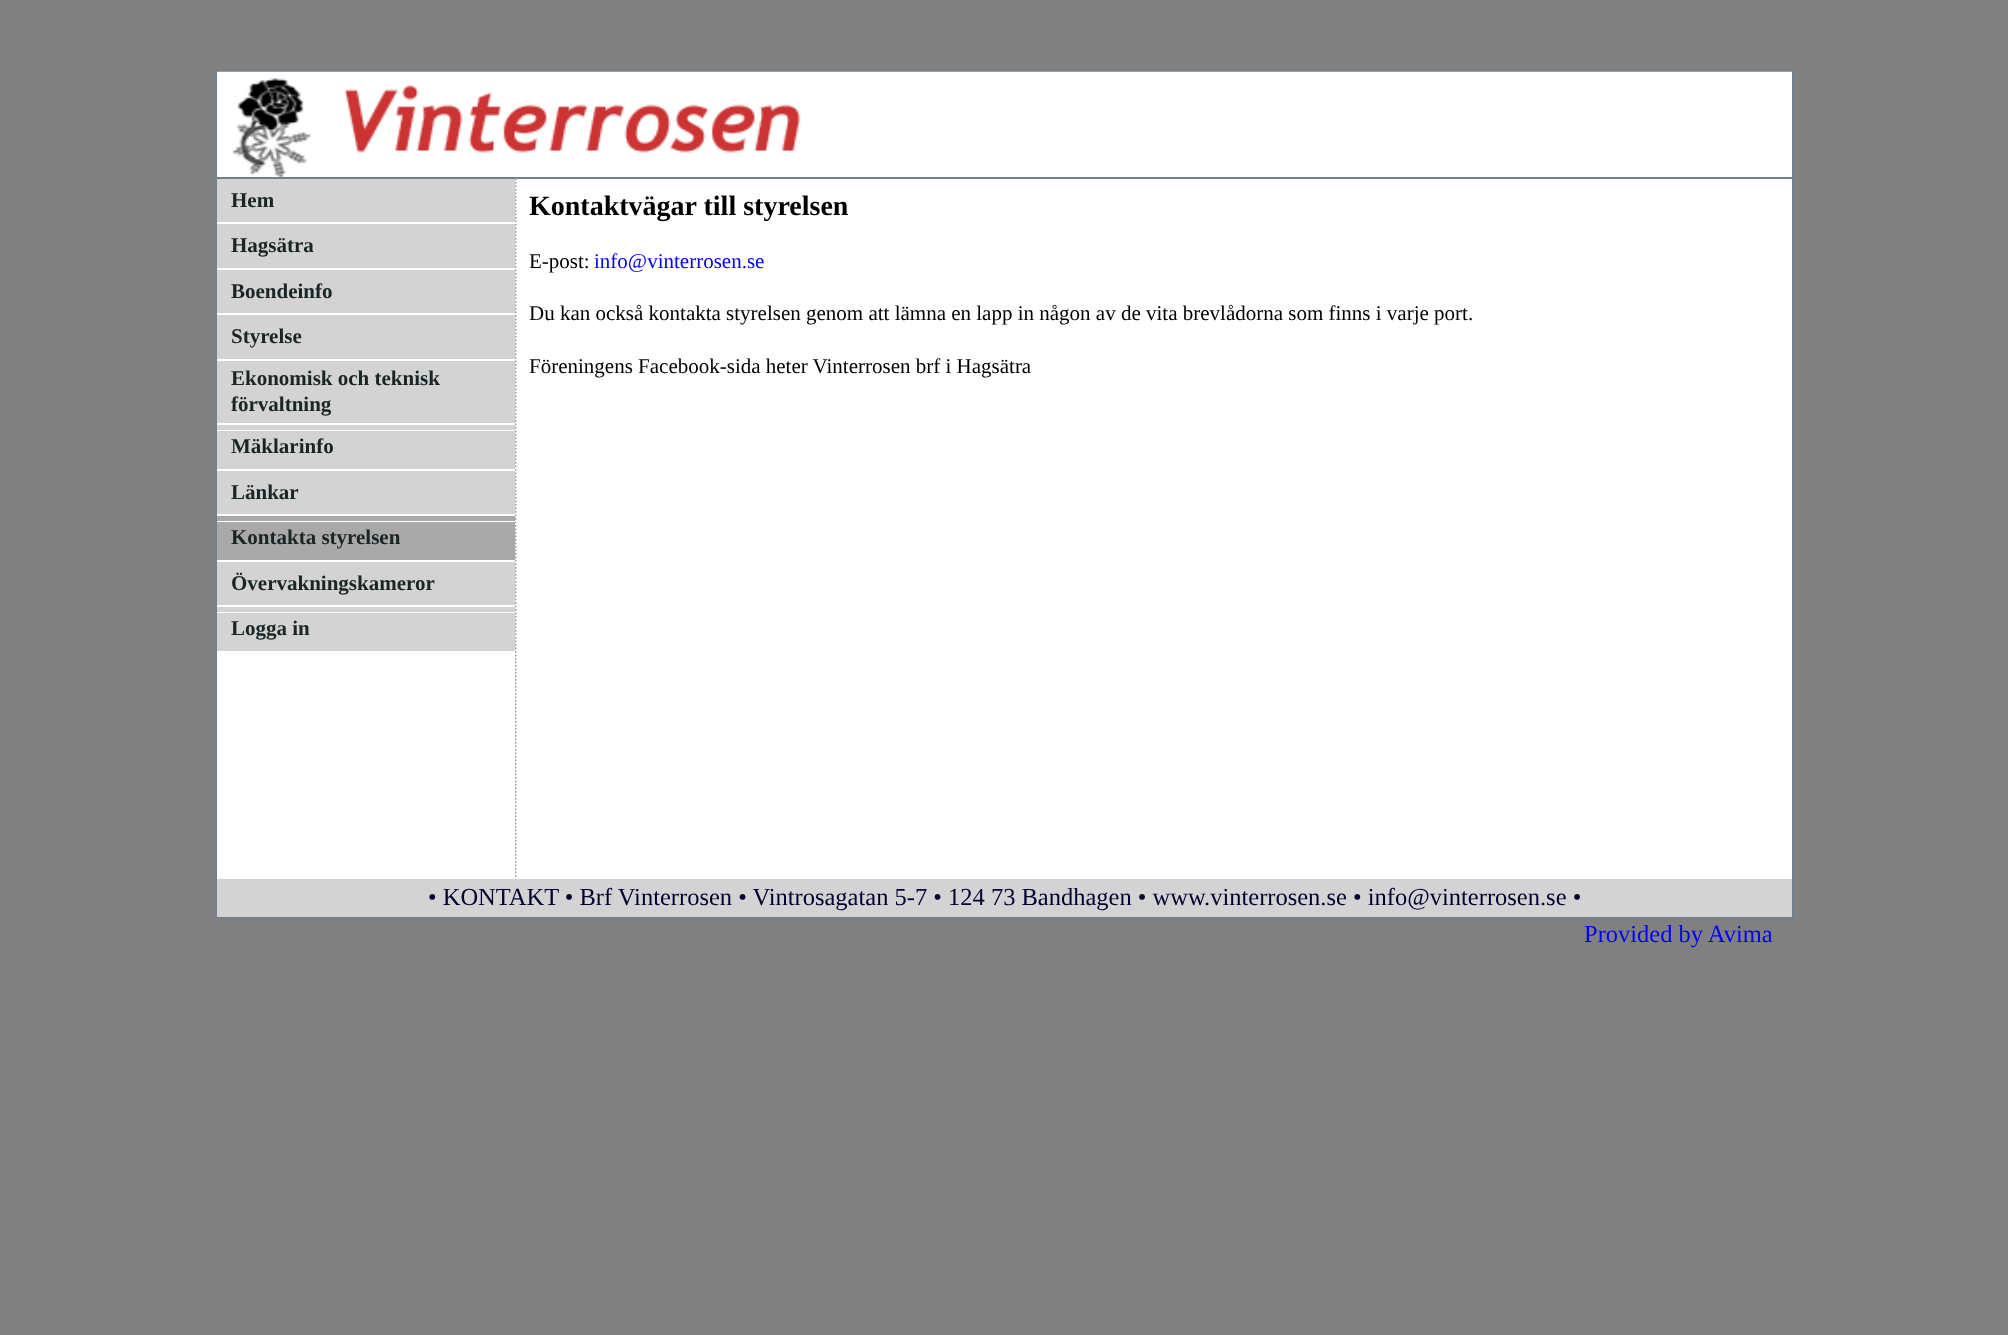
(async () => {
  const canvas = document.querySelector("canvas");
  canvas.width = 2008;
  canvas.height = 1335;
  const ctx = canvas.getContext("2d");
  ctx.miterLimit = 4;
  ctx.fontKerning = "normal";
  async function loadImage(src) {
    const img = new Image();
    img.src = src;
    await img.decode();
    return img;
  }
  let path;

  ctx.fillStyle = "#808080";
  ctx.fillRect(0, 0, 2008, 1335);
  ctx.fillStyle = "#ffffff";
  ctx.fillRect(217, 176, 1575, 703);
  ctx.strokeStyle = "#708090";
  ctx.lineWidth = 2;
  ctx.strokeRect(216, 71, 1577, 847);
  ctx.fillStyle = "#708090";
  ctx.fillRect(217, 177, 1575, 2);
  ctx.drawImage(await loadImage("img/1.png"), 217, 71, 1575, 106);
  path = new Path2D("M515.5 178.5V878.5");
  ctx.strokeStyle = "#999999";
  ctx.lineWidth = 1.8;
  ctx.setLineDash([1.75, 1.75]);
  ctx.stroke(path);
  for (const [x, y, w, h, color] of [
    [514, 222, 1, 655, "#ffffff"],
    [217, 179, 298, 43, "#d3d3d3"],
    [217, 224, 298, 44, "#d3d3d3"],
    [217, 270, 298, 43, "#d3d3d3"],
    [217, 315, 298, 44, "#d3d3d3"],
    [217, 361, 298, 62, "#d3d3d3"],
    [217, 425, 298, 5, "#d3d3d3"],
    [217, 431, 298, 38, "#d3d3d3"],
    [217, 471, 298, 43, "#d3d3d3"],
    [217, 516, 298, 5, "#a9a9a9"],
    [217, 522, 298, 38, "#a9a9a9"],
    [217, 562, 298, 43, "#d3d3d3"],
    [217, 607, 298, 5, "#d3d3d3"],
    [217, 613, 298, 38, "#d3d3d3"],
    [217, 879, 1575, 38, "#d3d3d3"],
  ]) {
    ctx.fillStyle = color;
    ctx.fillRect(x, y, w, h);
  }
  ctx.font = "bold 21px Liberation Serif";
  ctx.fillStyle = "#1a2626";
  for (const [text, x, y] of [
    ["Hem", 231, 207],
    ["Hagsätra", 231, 252],
    ["Boendeinfo", 231, 298],
    ["Styrelse", 231, 343],
    ["Ekonomisk och teknisk", 231, 385],
    ["förvaltning", 231, 411],
    ["Mäklarinfo", 231, 453],
    ["Länkar", 231, 499],
    ["Kontakta styrelsen", 231, 544],
    ["Övervakningskameror", 231, 590],
    ["Logga in", 231, 635],
  ]) {
    ctx.fillText(text, x, y);
  }
  ctx.font = "bold 28px Liberation Serif";
  ctx.fillStyle = "#000000";
  ctx.fillText("Kontaktvägar till styrelsen", 529, 215);
  ctx.font = "21px Liberation Serif";
  ctx.fillText("E-post:", 529, 268);
  ctx.fillStyle = "#0000ff";
  ctx.fillText("info@vinterrosen.se", 594, 268);
  ctx.fillStyle = "#000000";
  ctx.fillText("Du kan också kontakta styrelsen genom att lämna en lapp in någon av de vita brevlådorna som finns i varje port.", 529, 320);
  ctx.fillText("Föreningens Facebook-sida heter Vinterrosen brf i Hagsätra", 529, 373);
  ctx.font = "24.5px Liberation Serif";
  ctx.fillStyle = "#000033";
  ctx.fillText("• KONTAKT • Brf Vinterrosen • Vintrosagatan 5-7 • 124 73 Bandhagen • www.vinterrosen.se • info@vinterrosen.se •", 428, 905);
  ctx.fillStyle = "#0000ff";
  ctx.fillText("Provided by Avima", 1584, 942);
})();
